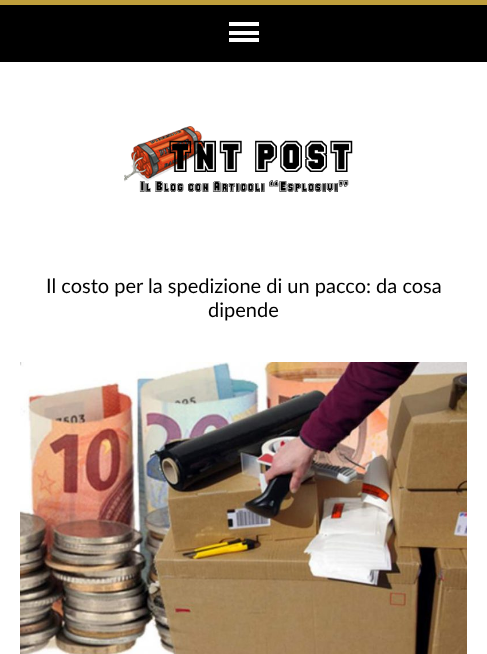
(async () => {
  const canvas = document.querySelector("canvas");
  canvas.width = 487;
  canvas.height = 654;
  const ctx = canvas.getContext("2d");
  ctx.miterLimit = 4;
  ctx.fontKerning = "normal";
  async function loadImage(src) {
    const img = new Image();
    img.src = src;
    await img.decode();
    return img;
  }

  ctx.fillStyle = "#ffffff";
  ctx.fillRect(0, 0, 487, 654);
  for (const [x, y, w, h, color] of [
    [0, 0, 487, 5, "#bf9e3b"],
    [0, 5, 487, 57, "#000000"],
    [229, 22, 30, 4, "#ffffff"],
    [229, 31, 30, 4, "#ffffff"],
    [229, 38, 30, 4, "#ffffff"],
  ]) {
    ctx.fillStyle = color;
    ctx.fillRect(x, y, w, h);
  }
  ctx.drawImage(await loadImage("img/1.png"), 124, 126, 229, 66);
  ctx.drawImage(await loadImage("img/2.png"), 20, 362, 447, 292);
  ctx.font = "20px Lato";
  ctx.fillStyle = "#000000";
  ctx.fillText("Il costo per la spedizione di un pacco: da cosa", 46, 293);
  ctx.fillText("dipende", 208, 317);
})();
